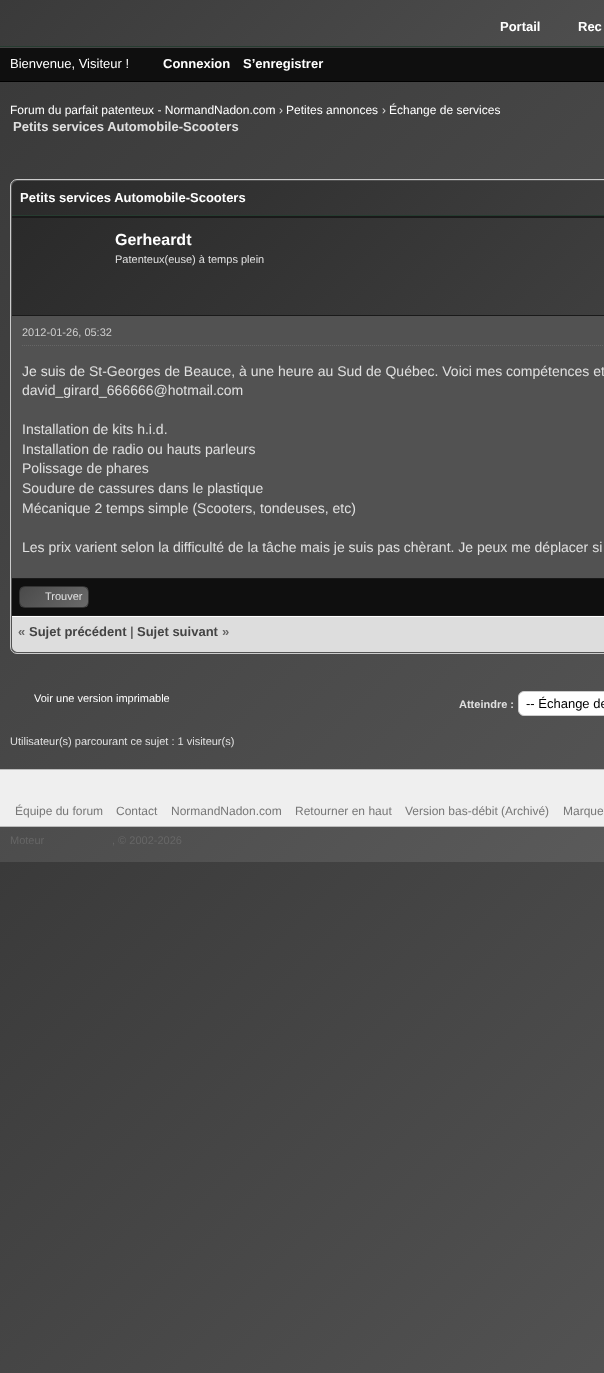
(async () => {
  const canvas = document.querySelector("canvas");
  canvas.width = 604;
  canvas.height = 1373;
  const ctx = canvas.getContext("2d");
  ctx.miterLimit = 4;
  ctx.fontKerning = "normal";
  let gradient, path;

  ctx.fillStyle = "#ffffff";
  ctx.fillRect(0, 0, 604, 1373);
  gradient = ctx.createLinearGradient(-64, 65, 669, 798);
  gradient.addColorStop(0, "#3a3a3a");
  gradient.addColorStop(0.5, "#4a4a4a");
  gradient.addColorStop(1, "#5a5a5a");
  ctx.fillStyle = gradient;
  ctx.fillRect(0, 827, 604, 35);
  gradient = ctx.createLinearGradient(-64, 927, 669, 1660);
  gradient.addColorStop(0, "#3a3a3a");
  gradient.addColorStop(0.5, "#4a4a4a");
  gradient.addColorStop(1, "#5a5a5a");
  ctx.fillStyle = gradient;
  ctx.fillRect(0, 862, 604, 511);
  gradient = ctx.createLinearGradient(236, -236, 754, 282);
  gradient.addColorStop(0, "#3a3a3a");
  gradient.addColorStop(0.5, "#4a4a4a");
  gradient.addColorStop(1, "#5a5a5a");
  ctx.fillStyle = gradient;
  ctx.fillRect(0, 0, 604, 46);
  for (const [x, y, w, h, color] of [
    [0, 46, 604, 1, "#263c30"],
    [0, 48, 604, 33, "#0f0f0f"],
    [0, 47, 604, 1, "#444444"],
    [0, 81, 604, 1, "#000000"],
  ]) {
    ctx.fillStyle = color;
    ctx.fillRect(x, y, w, h);
  }
  gradient = ctx.createLinearGradient(76, 6.2, 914, 845);
  gradient.addColorStop(0, "#3a3a3a");
  gradient.addColorStop(0.5, "#4a4a4a");
  gradient.addColorStop(1, "#5a5a5a");
  ctx.fillStyle = gradient;
  ctx.fillRect(0, 82, 604, 687);
  ctx.fillStyle = "#525252";
  ctx.beginPath();
  ctx.roundRect(10.5, 179.5, 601, 474, 6.5);
  ctx.fill();
  ctx.strokeStyle = "#cccccc";
  ctx.stroke();
  gradient = ctx.createLinearGradient(245, -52, 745, 448);
  gradient.addColorStop(0, "#2a2a2a");
  gradient.addColorStop(0.5, "#3a3a3a");
  gradient.addColorStop(1, "#4a4a4a");
  ctx.fillStyle = gradient;
  path = new Path2D("M18 181H604C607.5 181 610 183.5 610 187V215H12V187C12 183.5 14.5 181 18 181Z");
  ctx.fill(path);
  ctx.fillStyle = "#263c30";
  ctx.fillRect(12, 215, 592, 1);
  gradient = ctx.createLinearGradient(229, 0.8, 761, 532);
  gradient.addColorStop(0, "#2a2a2a");
  gradient.addColorStop(0.5, "#3a3a3a");
  gradient.addColorStop(1, "#4a4a4a");
  ctx.fillStyle = gradient;
  ctx.fillRect(12, 218, 592, 97);
  ctx.fillStyle = "#1a1a1a";
  ctx.fillRect(12, 216, 592, 2);
  ctx.fillRect(12, 315, 592, 1);
  path = new Path2D("M22 345.5H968");
  ctx.strokeStyle = "#666666";
  ctx.setLineDash([1, 1]);
  ctx.stroke(path);
  for (const [x, y, w, h, color] of [
    [12, 579, 592, 36, "#0f0f0f"],
    [12, 578, 592, 1, "#1a1a1a"],
    [12, 615, 592, 1, "#1a1a1a"],
  ]) {
    ctx.fillStyle = color;
    ctx.fillRect(x, y, w, h);
  }
  ctx.save();
  ctx.beginPath();
  ctx.roundRect(19, 586, 70, 22, 6);
  ctx.clip();
  gradient = ctx.createLinearGradient(32, 575, 76, 619);
  gradient.addColorStop(0, "#4a4a4a");
  gradient.addColorStop(0.5, "#5a5a5a");
  gradient.addColorStop(1, "#6a6a6a");
  ctx.fillStyle = gradient;
  ctx.fillRect(20, 587, 68, 20);
  ctx.restore();
  ctx.beginPath();
  ctx.roundRect(19.5, 586.5, 69, 21, 5.5);
  ctx.strokeStyle = "#333333";
  ctx.setLineDash([]);
  ctx.stroke();
  ctx.fillStyle = "#dddddd";
  path = new Path2D("M12 616H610V646C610 649.5 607.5 652 604 652H18C14.5 652 12 649.5 12 646Z");
  ctx.fill(path);
  ctx.fillStyle = "#ffffff";
  ctx.fillRect(12, 616, 592, 1);
  ctx.beginPath();
  ctx.roundRect(518.5, 691.5, 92, 24, 5.5);
  ctx.fill();
  ctx.strokeStyle = "#cccccc";
  ctx.stroke();
  for (const [x, y, w, h, color] of [
    [0, 770, 604, 56, "#efefef"],
    [0, 769, 604, 1, "#bbbbbb"],
    [0, 826, 604, 1, "#bbbbbb"],
  ]) {
    ctx.fillStyle = color;
    ctx.fillRect(x, y, w, h);
  }
  ctx.font = "bold 13px Liberation Sans";
  ctx.fillStyle = "#ffffff";
  ctx.fillText("Portail", 500, 31);
  ctx.fillText("Rec", 578, 31);
  ctx.font = "13px Liberation Sans";
  ctx.fillText("Bienvenue, Visiteur !", 10, 68);
  ctx.font = "bold 13px Liberation Sans";
  ctx.fillText("Connexion", 163, 68);
  ctx.fillText("S’enregistrer", 243, 68);
  ctx.font = "12px Liberation Sans";
  ctx.fillText("Forum du parfait patenteux - NormandNadon.com", 10, 114);
  ctx.fillStyle = "#e0e0e0";
  ctx.fillText("›", 279, 114);
  ctx.fillStyle = "#ffffff";
  ctx.fillText("Petites annonces", 286, 114);
  ctx.fillStyle = "#e0e0e0";
  ctx.fillText("›", 382, 114);
  ctx.fillStyle = "#ffffff";
  ctx.fillText("Échange de services", 389, 114);
  ctx.font = "bold 13px Liberation Sans";
  ctx.fillStyle = "#e0e0e0";
  ctx.fillText("Petits services Automobile-Scooters", 13, 131);
  ctx.fillStyle = "#ffffff";
  ctx.fillText("Petits services Automobile-Scooters", 20, 202);
  ctx.font = "bold 16px Liberation Sans";
  ctx.fillText("Gerheardt", 115, 245);
  ctx.font = "11px Liberation Sans";
  ctx.fillStyle = "#e0e0e0";
  ctx.fillText("Patenteux(euse) à temps plein", 115, 263);
  ctx.fillStyle = "#cccccc";
  ctx.fillText("2012-01-26, 05:32", 22, 336);
  ctx.font = "14px Liberation Sans";
  ctx.fillStyle = "#e0e0e0";
  for (const [text, x, y] of [
    ["Je suis de St-Georges de Beauce, à une heure au Sud de Québec. Voici mes compétences et", 22, 376],
    ["david_girard_666666@hotmail.com", 22, 395],
    ["Installation de kits h.i.d.", 22, 434],
    ["Installation de radio ou hauts parleurs", 22, 454],
    ["Polissage de phares", 22, 473],
    ["Soudure de cassures dans le plastique", 22, 493],
    ["Mécanique 2 temps simple (Scooters, tondeuses, etc)", 22, 513],
    ["Les prix varient selon la difficulté de la tâche mais je suis pas chèrant. Je peux me déplacer si", 22, 552],
  ]) {
    ctx.fillText(text, x, y);
  }
  ctx.font = "11px Liberation Sans";
  ctx.fillText("Trouver", 45, 600);
  ctx.font = "bold 13px Liberation Sans";
  ctx.fillStyle = "#666666";
  ctx.fillText("«", 18, 636);
  ctx.fillStyle = "#444444";
  ctx.fillText("Sujet précédent", 29, 636);
  ctx.fillStyle = "#666666";
  ctx.fillText("|", 130, 636);
  ctx.fillStyle = "#444444";
  ctx.fillText("Sujet suivant", 137, 636);
  ctx.fillStyle = "#666666";
  ctx.fillText("»", 222, 636);
  ctx.font = "11px Liberation Sans";
  ctx.fillStyle = "#ffffff";
  ctx.fillText("Voir une version imprimable", 34, 702);
  ctx.font = "bold 11px Liberation Sans";
  ctx.fillStyle = "#e0e0e0";
  ctx.fillText("Atteindre :", 459, 708);
  ctx.font = "13px Liberation Sans";
  ctx.fillStyle = "#000000";
  ctx.fillText("-- Échange de", 526, 708);
  ctx.font = "11px Liberation Sans";
  ctx.fillStyle = "#e0e0e0";
  ctx.fillText("Utilisateur(s) parcourant ce sujet : 1 visiteur(s)", 10, 745);
  ctx.font = "12px Liberation Sans";
  ctx.fillStyle = "#777777";
  for (const [text, x, y] of [
    ["Équipe du forum", 15, 815],
    ["Contact", 116, 815],
    ["NormandNadon.com", 171, 815],
    ["Retourner en haut", 295, 815],
    ["Version bas-débit (Archivé)", 405, 815],
    ["Marque", 563, 815],
  ]) {
    ctx.fillText(text, x, y);
  }
  ctx.font = "11px Liberation Sans";
  ctx.fillStyle = "#666666";
  ctx.fillText("Moteur", 10, 844);
  ctx.fillText(", © 2002-2026", 112, 844);
})();
